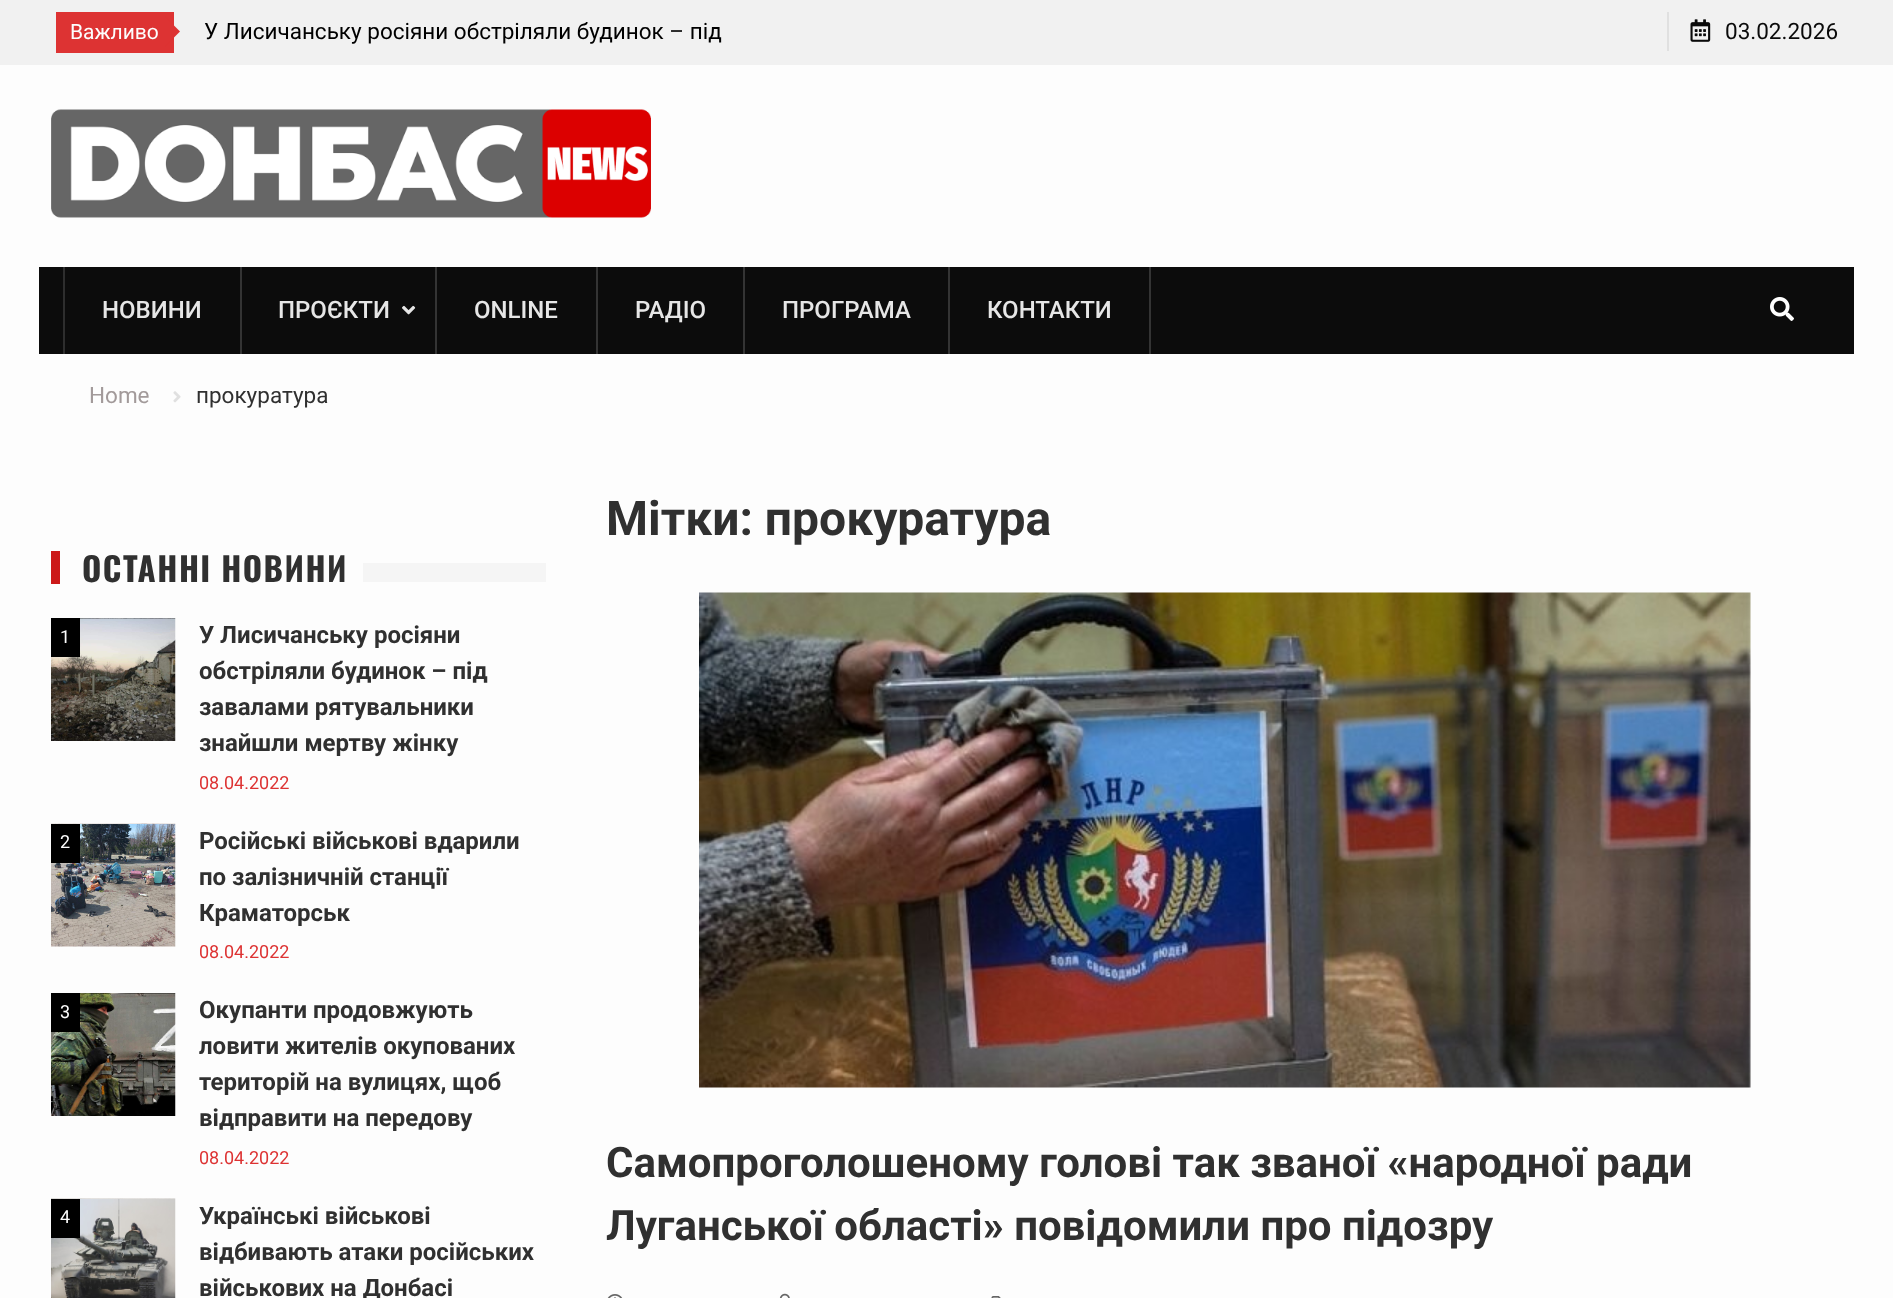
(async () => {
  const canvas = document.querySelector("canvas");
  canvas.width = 1893;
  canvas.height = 1298;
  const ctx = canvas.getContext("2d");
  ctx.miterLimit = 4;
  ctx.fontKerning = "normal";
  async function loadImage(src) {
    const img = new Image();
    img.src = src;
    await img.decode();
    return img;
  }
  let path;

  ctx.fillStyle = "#fdfdfd";
  ctx.fillRect(0, 0, 1893, 1298);
  ctx.fillStyle = "#f1f1f1";
  ctx.fillRect(0, 0, 1893, 65);
  ctx.fillStyle = "#dd3333";
  ctx.fillRect(56, 12, 118, 41);
  path = new Path2D("M165 46.5V16.5L180 31.5Z");
  ctx.fill(path);
  ctx.fillStyle = "#e0e0e0";
  ctx.fillRect(1667, 12, 2, 39);
  ctx.drawImage(await loadImage("img/1.png"), 1690, 19, 21, 23);
  ctx.drawImage(await loadImage("img/2.png"), 51, 109, 600, 109);
  for (const [x, y, w, h, color] of [
    [39, 267, 1815, 87, "#0c0c0c"],
    [240, 267, 2, 87, "#343434"],
    [63, 267, 2, 87, "#2e2e2e"],
    [435, 267, 2, 87, "#343434"],
  ]) {
    ctx.fillStyle = color;
    ctx.fillRect(x, y, w, h);
  }
  ctx.drawImage(await loadImage("img/3.png"), 402, 305, 14, 10);
  for (const [x, y, w, h, color] of [
    [596, 267, 2, 87, "#343434"],
    [743, 267, 2, 87, "#343434"],
    [948, 267, 2, 87, "#343434"],
    [1149, 267, 2, 87, "#343434"],
  ]) {
    ctx.fillStyle = color;
    ctx.fillRect(x, y, w, h);
  }
  ctx.drawImage(await loadImage("img/4.png"), 1770, 297, 24, 24);
  ctx.drawImage(await loadImage("img/5.png"), 173, 391, 8, 12);
  ctx.fillStyle = "#cc1919";
  ctx.fillRect(51, 551, 9, 33);
  ctx.fillStyle = "#f5f5f5";
  ctx.fillRect(363, 563, 183, 19);
  ctx.drawImage(await loadImage("img/6.png"), 51, 618, 125, 123);
  ctx.fillStyle = "#000000";
  ctx.fillRect(51, 618, 29, 39);
  ctx.drawImage(await loadImage("img/7.png"), 51, 823, 125, 124);
  ctx.fillRect(51, 824, 29, 39);
  ctx.drawImage(await loadImage("img/8.png"), 51, 993, 125, 123);
  ctx.fillRect(51, 993, 29, 39);
  ctx.drawImage(await loadImage("img/9.png"), 51, 1198, 125, 100);
  ctx.fillRect(51, 1199, 29, 39);
  ctx.drawImage(await loadImage("img/10.png"), 699, 592, 1052, 496);
  ctx.drawImage(await loadImage("img/11.png"), 607, 1294, 16, 4);
  ctx.drawImage(await loadImage("img/12.png"), 779, 1293, 11, 5);
  ctx.drawImage(await loadImage("img/13.png"), 991, 1296, 10, 2);
  ctx.font = "21px Roboto";
  ctx.fillStyle = "#fdfdfd";
  ctx.fillText("Важливо", 70, 39);
  ctx.font = "22.5px Roboto";
  ctx.fillStyle = "#000000";
  ctx.fillText("У Лисичанську росіяни обстріляли будинок – під", 204, 39);
  ctx.fillStyle = "#0a0a0a";
  ctx.fillText("03.02.2026", 1725, 39);
  ctx.font = "500 24px Roboto";
  ctx.fillStyle = "#e6e6e6";
  for (const [text, x, y] of [
    ["НОВИНИ", 102, 318],
    ["ПРОЄКТИ", 278, 318],
    ["ОNLINE", 474, 318],
    ["РАДІО", 635, 318],
    ["ПРОГРАМА", 782, 318],
    ["КОНТАКТИ", 987, 318],
  ]) {
    ctx.fillText(text, x, y);
  }
  ctx.font = "22.5px Roboto";
  ctx.fillStyle = "#a29a9a";
  ctx.fillText("Home", 89, 403);
  ctx.fillStyle = "#303030";
  ctx.fillText("прокуратура", 196, 403);
  ctx.letterSpacing = "1.5px";
  ctx.font = "bold 33px Oswald";
  ctx.fillText("ОСТАННІ НОВИНИ", 82, 582);
  ctx.letterSpacing = "0px";
  ctx.font = "18px Roboto";
  ctx.fillStyle = "#fdfdfd";
  ctx.fillText("1", 60, 643);
  ctx.font = "bold 24px Roboto";
  ctx.fillStyle = "#303030";
  for (const [text, x, y] of [
    ["У Лисичанську росіяни", 199, 643],
    ["обстріляли будинок – під", 199, 679],
    ["завалами рятувальники", 199, 715],
    ["знайшли мертву жінку", 199, 751],
  ]) {
    ctx.fillText(text, x, y);
  }
  ctx.font = "18px Roboto";
  ctx.fillStyle = "#dd3333";
  ctx.fillText("08.04.2022", 199, 789);
  ctx.fillStyle = "#fdfdfd";
  ctx.fillText("2", 60, 848);
  ctx.font = "bold 24px Roboto";
  ctx.fillStyle = "#303030";
  for (const [text, x, y] of [
    ["Російські військові вдарили", 199, 849],
    ["по залізничній станції", 199, 885],
    ["Краматорськ", 199, 921],
  ]) {
    ctx.fillText(text, x, y);
  }
  ctx.font = "18px Roboto";
  ctx.fillStyle = "#dd3333";
  ctx.fillText("08.04.2022", 199, 958);
  ctx.fillStyle = "#fdfdfd";
  ctx.fillText("3", 60, 1018);
  ctx.font = "bold 24px Roboto";
  ctx.fillStyle = "#303030";
  for (const [text, x, y] of [
    ["Окупанти продовжують", 199, 1018],
    ["ловити жителів окупованих", 199, 1054],
    ["територій на вулицях, щоб", 199, 1090],
    ["відправити на передову", 199, 1126],
  ]) {
    ctx.fillText(text, x, y);
  }
  ctx.font = "18px Roboto";
  ctx.fillStyle = "#dd3333";
  ctx.fillText("08.04.2022", 199, 1164);
  ctx.fillStyle = "#fdfdfd";
  ctx.fillText("4", 60, 1223);
  ctx.font = "bold 24px Roboto";
  ctx.fillStyle = "#303030";
  for (const [text, x, y] of [
    ["Українські військові", 199, 1224],
    ["відбивають атаки російських", 199, 1260],
    ["військових на Донбасі", 199, 1296],
  ]) {
    ctx.fillText(text, x, y);
  }
  ctx.font = "bold 48px Roboto";
  ctx.fillText("Мітки: прокуратура", 606, 535);
  ctx.font = "bold 42px Roboto";
  ctx.fillText("Самопроголошеному голові так званої «народної ради", 606, 1177);
  ctx.fillText("Луганської області» повідомили про підозру", 606, 1240);
})();
